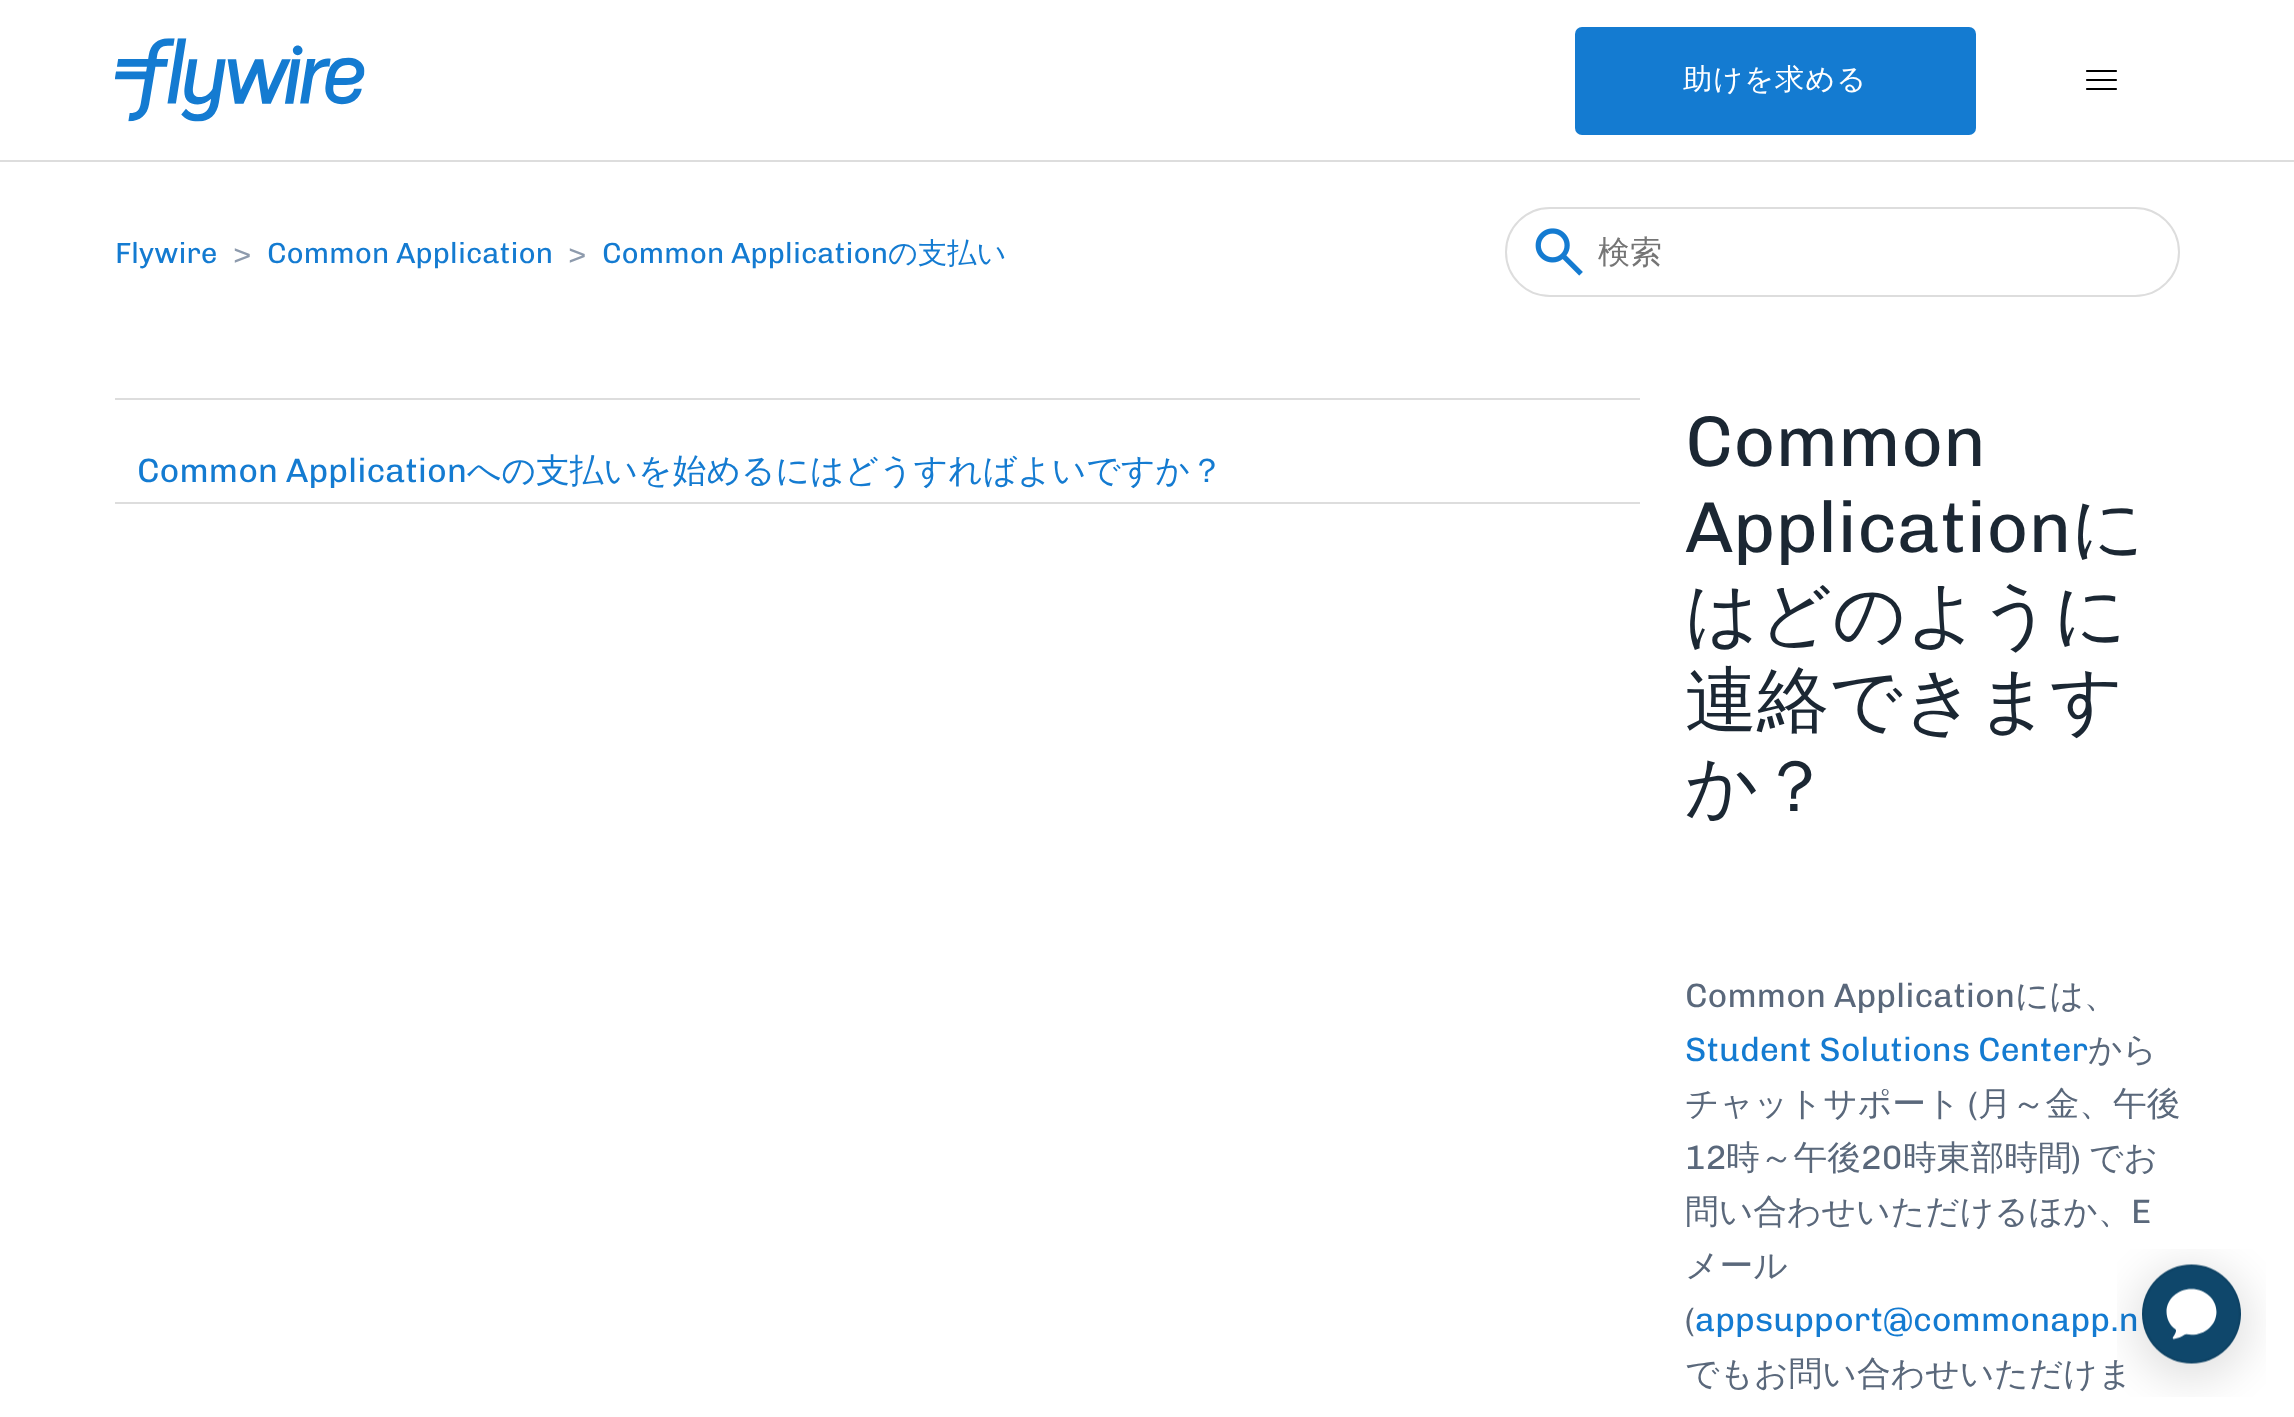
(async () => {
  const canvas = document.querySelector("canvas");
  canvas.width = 2294;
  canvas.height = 1417;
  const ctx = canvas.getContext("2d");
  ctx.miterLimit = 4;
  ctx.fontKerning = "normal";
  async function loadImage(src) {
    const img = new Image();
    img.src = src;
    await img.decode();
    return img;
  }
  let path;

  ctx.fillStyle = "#ffffff";
  ctx.fillRect(0, 0, 2294, 1417);
  ctx.drawImage(await loadImage("img/1.png"), 115, 38, 250, 84);
  ctx.fillStyle = "#147bd1";
  ctx.beginPath();
  ctx.roundRect(1575, 27, 401, 108, 7);
  ctx.fill();
  path = new Path2D("M2087 71H2116M2087 80H2116M2087 89H2116");
  ctx.strokeStyle = "#000000";
  ctx.lineWidth = 2.2;
  ctx.lineCap = "round";
  ctx.stroke(path);
  ctx.fillStyle = "#dddddd";
  ctx.fillRect(0, 160, 2294, 2);
  ctx.beginPath();
  ctx.roundRect(1506, 208, 673, 88, 44);
  ctx.strokeStyle = "#dddddd";
  ctx.lineWidth = 2;
  ctx.stroke();
  ctx.drawImage(await loadImage("img/2.png"), 1535, 228, 48, 48);
  ctx.fillRect(115, 398, 1525, 2);
  ctx.fillRect(115, 502, 1525, 2);
  ctx.letterSpacing = "1px";
  ctx.font = "500 29.25px WenQuanYi Zen Hei";
  ctx.fillStyle = "#ffffff";
  ctx.fillText("助けを求める", 1683, 89);
  ctx.letterSpacing = "0px";
  ctx.font = "29.25px Chivo";
  ctx.fillStyle = "#147bd1";
  ctx.fillText("Flywire", 115, 263);
  ctx.fillStyle = "#8e9bad";
  ctx.fillText(">", 233, 263);
  ctx.fillStyle = "#147bd1";
  ctx.fillText("Common Application", 267, 263);
  ctx.fillStyle = "#8e9bad";
  ctx.fillText(">", 568, 263);
  ctx.fillStyle = "#147bd1";
  ctx.fillText("Common Application", 602, 263);
  ctx.font = "500 29.25px WenQuanYi Zen Hei";
  ctx.fillText("の支払い", 888, 263);
  ctx.font = "500 32px WenQuanYi Zen Hei";
  ctx.fillStyle = "#757575";
  ctx.fillText("検索", 1598, 263);
  ctx.font = "33.75px Chivo";
  ctx.fillStyle = "#147bd1";
  ctx.fillText("Common Application", 137, 482);
  ctx.font = "500 33.75px WenQuanYi Zen Hei";
  ctx.fillText("への支払いを始めるにはどうすればよいですか？", 467, 482);
  ctx.font = "72px Chivo";
  ctx.fillStyle = "#1b2733";
  ctx.fillText("Common", 1685, 466);
  ctx.fillText("Application", 1685, 552);
  ctx.font = "500 72px WenQuanYi Zen Hei";
  for (const [text, x, y] of [
    ["に", 2071, 552],
    ["はどのように", 1685, 639],
    ["連絡できます", 1685, 725],
    ["か？", 1685, 811],
  ]) {
    ctx.fillText(text, x, y);
  }
  ctx.font = "33.75px Chivo";
  ctx.fillStyle = "#5a687b";
  ctx.fillText("Common Application", 1685, 1007);
  ctx.font = "500 33.75px WenQuanYi Zen Hei";
  ctx.fillText("には、", 2015, 1007);
  ctx.font = "33.75px Chivo";
  ctx.fillStyle = "#147bd1";
  ctx.fillText("Student Solutions Center", 1685, 1061);
  ctx.font = "500 33.75px WenQuanYi Zen Hei";
  ctx.fillStyle = "#5a687b";
  ctx.fillText("から", 2088, 1061);
  ctx.fillText("チャットサポート", 1685, 1115);
  ctx.font = "33.75px Chivo";
  ctx.fillText("(", 1968, 1115);
  ctx.font = "500 33.75px WenQuanYi Zen Hei";
  ctx.fillText("月～金、午後", 1978, 1115);
  ctx.font = "33.75px Chivo";
  ctx.fillText("12", 1685, 1169);
  ctx.font = "500 33.75px WenQuanYi Zen Hei";
  ctx.fillText("時～午後", 1726, 1169);
  ctx.font = "33.75px Chivo";
  ctx.fillText("20", 1861, 1169);
  ctx.font = "500 33.75px WenQuanYi Zen Hei";
  ctx.fillText("時東部時間", 1903, 1169);
  ctx.font = "33.75px Chivo";
  ctx.fillText(")", 2071, 1169);
  ctx.font = "500 33.75px WenQuanYi Zen Hei";
  ctx.fillText("でお", 2089, 1169);
  ctx.fillText("問い合わせいただけるほか、", 1685, 1223);
  ctx.font = "33.75px Chivo";
  ctx.fillText("E", 2131, 1223);
  ctx.font = "500 33.75px WenQuanYi Zen Hei";
  ctx.fillText("メール", 1685, 1277);
  ctx.font = "33.75px Chivo";
  ctx.fillText("(", 1685, 1331);
  ctx.fillStyle = "#147bd1";
  ctx.fillText("appsupport@commonapp.n", 1695, 1331);
  ctx.font = "500 33.75px WenQuanYi Zen Hei";
  ctx.fillStyle = "#5a687b";
  ctx.fillText("でもお問い合わせいただけま", 1685, 1385);
  ctx.drawImage(await loadImage("img/3.png"), 2117, 1249, 149, 148);
})();
